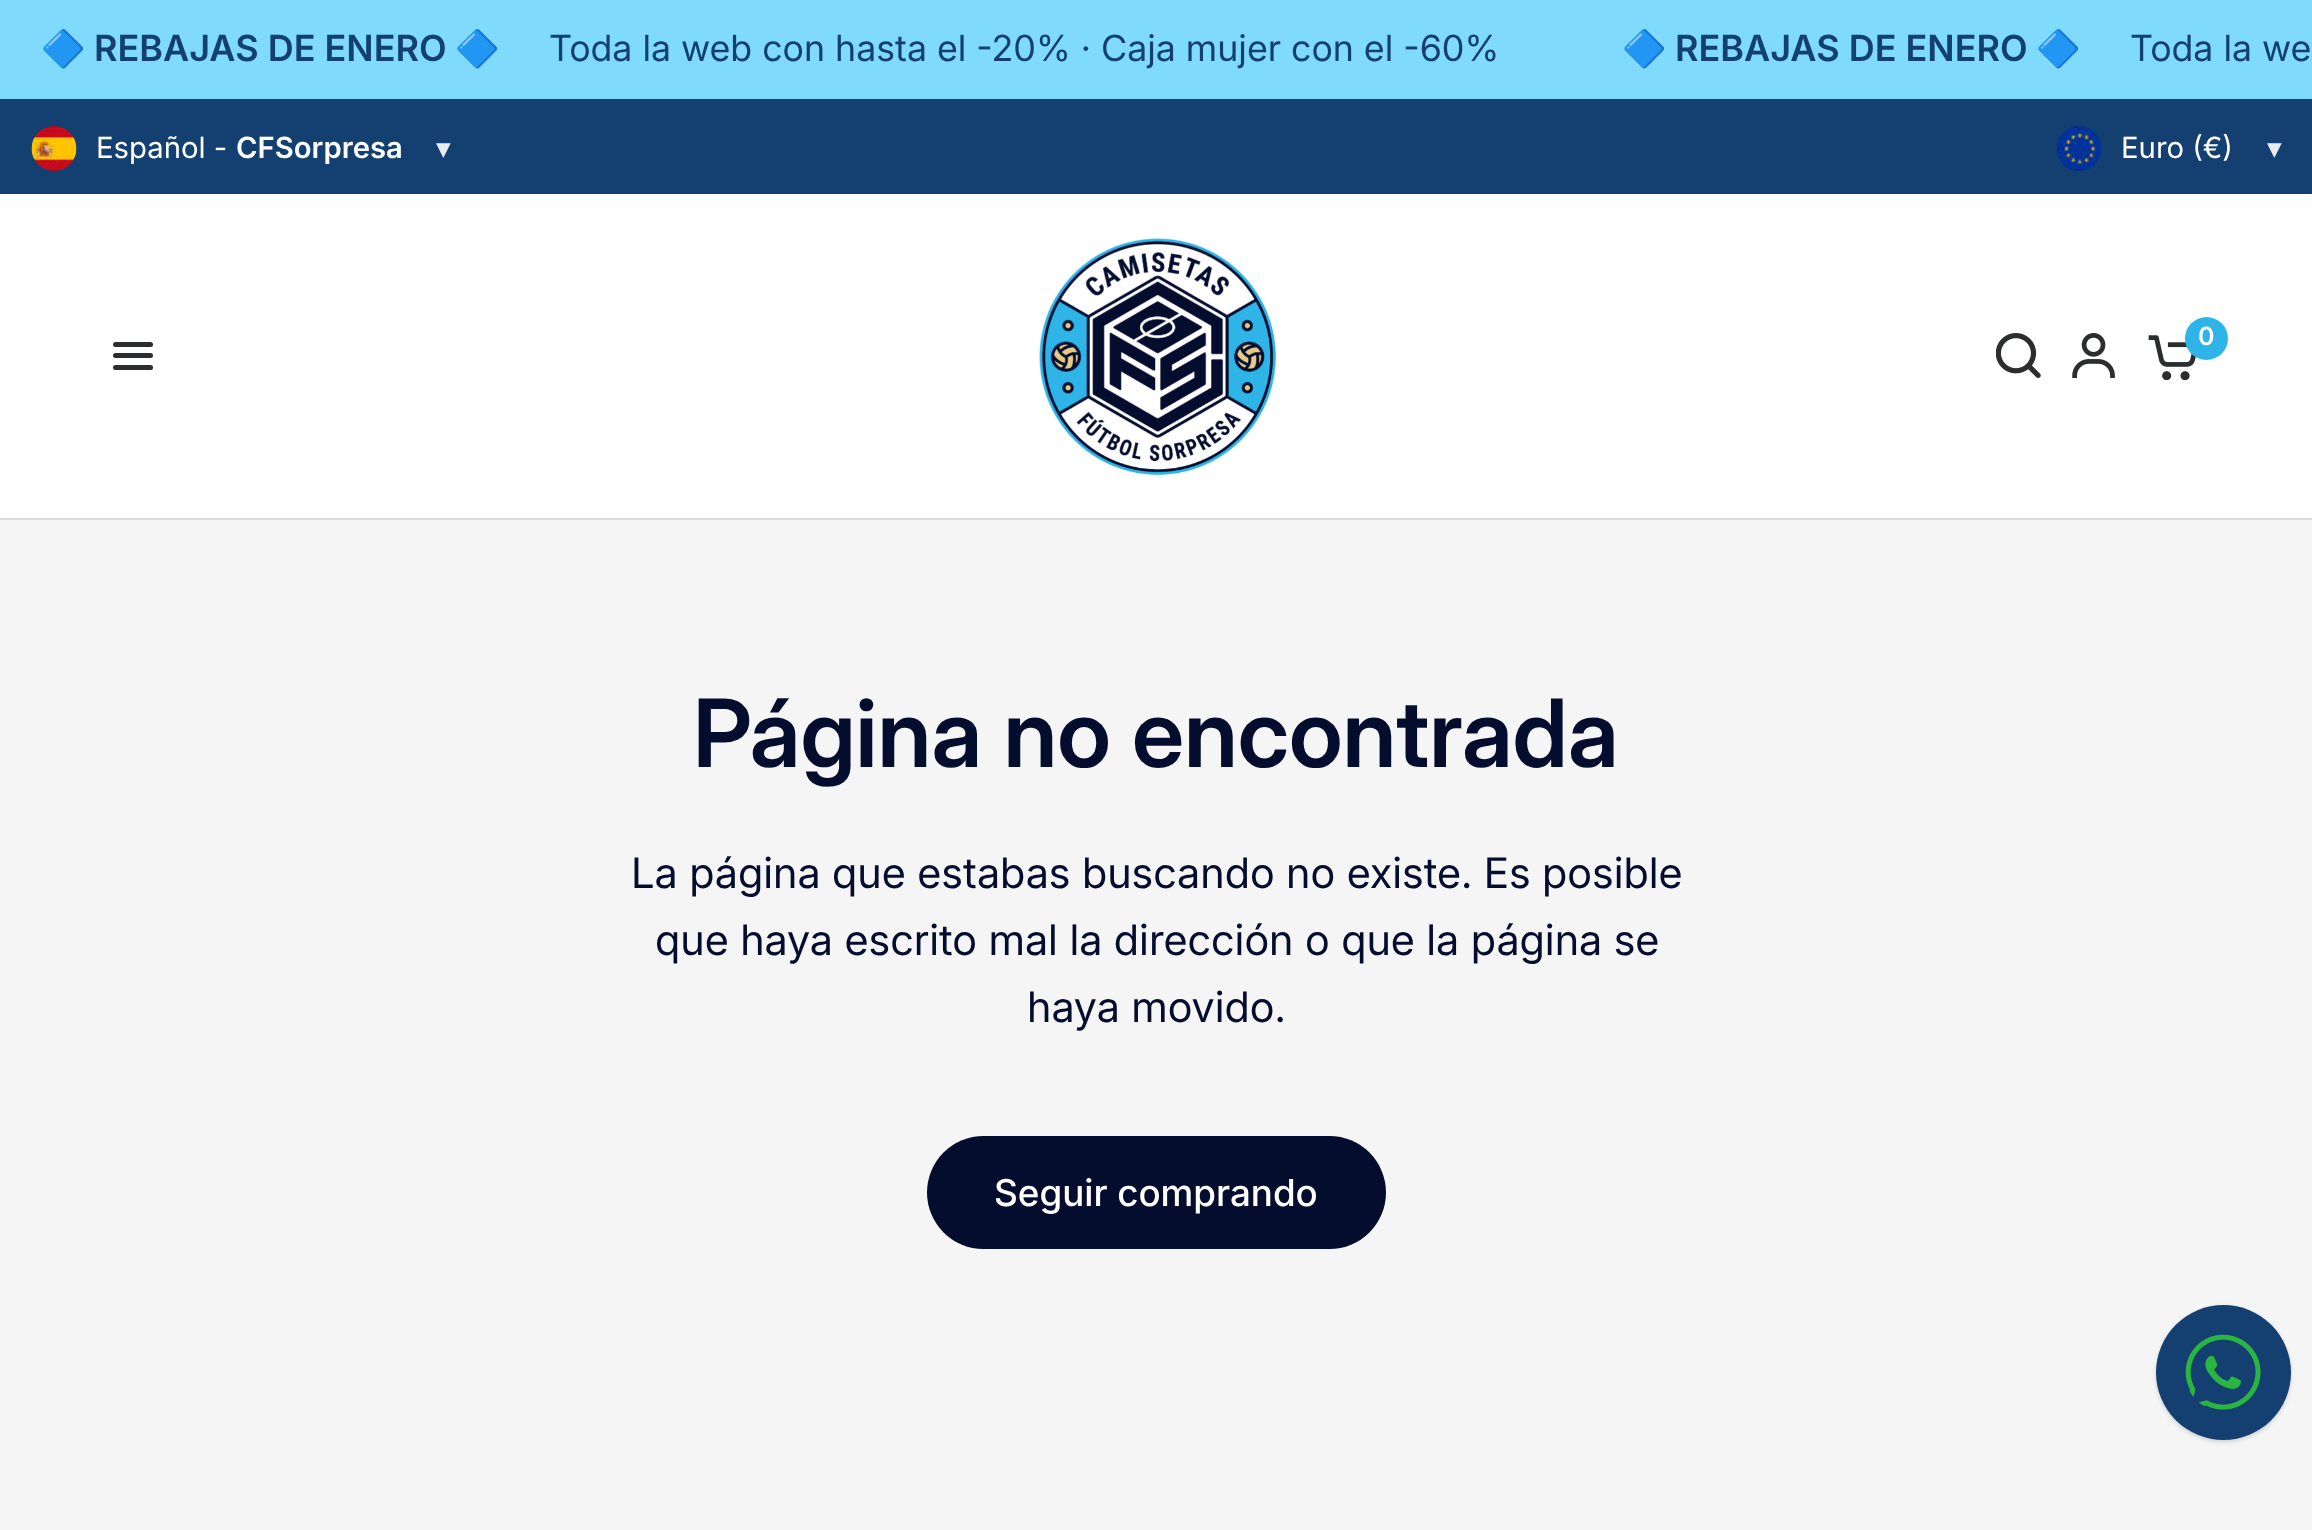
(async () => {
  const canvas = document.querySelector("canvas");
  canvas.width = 2312;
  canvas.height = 1530;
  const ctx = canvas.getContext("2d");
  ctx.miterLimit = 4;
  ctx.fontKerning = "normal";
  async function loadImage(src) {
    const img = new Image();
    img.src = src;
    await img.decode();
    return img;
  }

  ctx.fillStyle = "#7fdafc";
  ctx.fillRect(0, 0, 2312, 1530);
  ctx.fillStyle = "#134070";
  ctx.fillRect(0, 99, 2312, 95);
  ctx.drawImage(await loadImage("img/1.png"), 31, 126, 46, 45);
  ctx.drawImage(await loadImage("img/2.png"), 2056, 126, 46, 45);
  ctx.fillStyle = "#ffffff";
  ctx.fillRect(0, 194, 2312, 324);
  ctx.drawImage(await loadImage("img/3.png"), 1039, 238, 237, 237);
  ctx.drawImage(await loadImage("img/4.png"), 1996, 333, 45, 45);
  ctx.drawImage(await loadImage("img/5.png"), 2072, 333, 43, 45);
  ctx.drawImage(await loadImage("img/6.png"), 2148, 335, 48, 45);
  ctx.fillStyle = "#2eb4e7";
  ctx.beginPath();
  ctx.arc(2206.5, 338.5, 21.5, 0, Math.PI * 2);
  ctx.fill();
  ctx.fillStyle = "#2c2d2e";
  ctx.beginPath();
  ctx.roundRect(113, 342, 40, 5, 2.5);
  ctx.fill();
  ctx.beginPath();
  ctx.roundRect(113, 353, 40, 5, 2.5);
  ctx.fill();
  ctx.beginPath();
  ctx.roundRect(113, 365, 40, 5, 2.5);
  ctx.fill();
  ctx.fillStyle = "#dadce0";
  ctx.fillRect(0, 518, 2312, 2);
  ctx.fillStyle = "#f5f5f5";
  ctx.fillRect(0, 520, 2312, 1010);
  ctx.fillStyle = "#040d2d";
  ctx.beginPath();
  ctx.roundRect(927, 1136, 459, 113, 56.5);
  ctx.fill();
  ctx.fillStyle = "rgba(0, 0, 0, 0.15)";
  ctx.filter = "blur(2px)";
  ctx.beginPath();
  ctx.roundRect(2156, 1307, 135, 135, 67.5);
  ctx.fill();
  ctx.filter = "none";
  ctx.fillStyle = "#134070";
  ctx.beginPath();
  ctx.arc(2223.5, 1372.5, 67.5, 0, Math.PI * 2);
  ctx.fill();
  ctx.drawImage(await loadImage("img/7.png"), 2185, 1334, 76, 76);
  ctx.font = "bold 36px Noto Color Emoji";
  ctx.fillText("🔷", 41, 61);
  ctx.font = "600 36px Inter";
  ctx.fillText("REBAJAS DE ENERO", 94, 61);
  ctx.font = "bold 36px Noto Color Emoji";
  ctx.fillText("🔷", 455, 61);
  ctx.font = "36px Inter";
  ctx.fillText("Toda la web con hasta el -20% · Caja mujer con el -60%", 549, 61);
  ctx.font = "bold 36px Noto Color Emoji";
  ctx.fillText("🔷", 1622, 61);
  ctx.font = "600 36px Inter";
  ctx.fillText("REBAJAS DE ENERO", 1675, 61);
  ctx.font = "bold 36px Noto Color Emoji";
  ctx.fillText("🔷", 2036, 61);
  ctx.font = "36px Inter";
  ctx.fillText("Toda la we", 2130, 61);
  ctx.font = "29.25px 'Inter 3'";
  ctx.fillStyle = "#ffffff";
  ctx.fillText("Español -", 96, 158);
  ctx.font = "600 29.25px Inter";
  ctx.fillText("CFSorpresa", 236, 158);
  ctx.font = "29.25px DejaVu Sans";
  ctx.fillStyle = "#e7ecf1";
  ctx.fillText("▾", 436, 158);
  ctx.font = "29.25px 'Inter 3'";
  ctx.fillStyle = "#ffffff";
  ctx.fillText("Euro (€)", 2121, 158);
  ctx.font = "29.25px DejaVu Sans";
  ctx.fillStyle = "#e7ecf1";
  ctx.fillText("▾", 2267, 158);
  ctx.font = "600 25px Inter";
  ctx.fillStyle = "#ffffff";
  ctx.fillText("0", 2198, 345);
  ctx.font = "600 94px 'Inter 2'";
  ctx.fillStyle = "#040d2d";
  ctx.fillText("Página no encontrada", 693, 767);
  ctx.font = "42.1px 'Inter 2'";
  for (const [text, x, y] of [
    ["La página que estabas buscando no existe. Es posible", 631, 888],
    ["que haya escrito mal la dirección o que la página se", 655, 955],
    ["haya movido.", 1027, 1022],
  ]) {
    ctx.fillText(text, x, y);
  }
  ctx.font = "500 37.1px Inter";
  ctx.fillStyle = "#ffffff";
  ctx.fillText("Seguir comprando", 994, 1206);
})();
